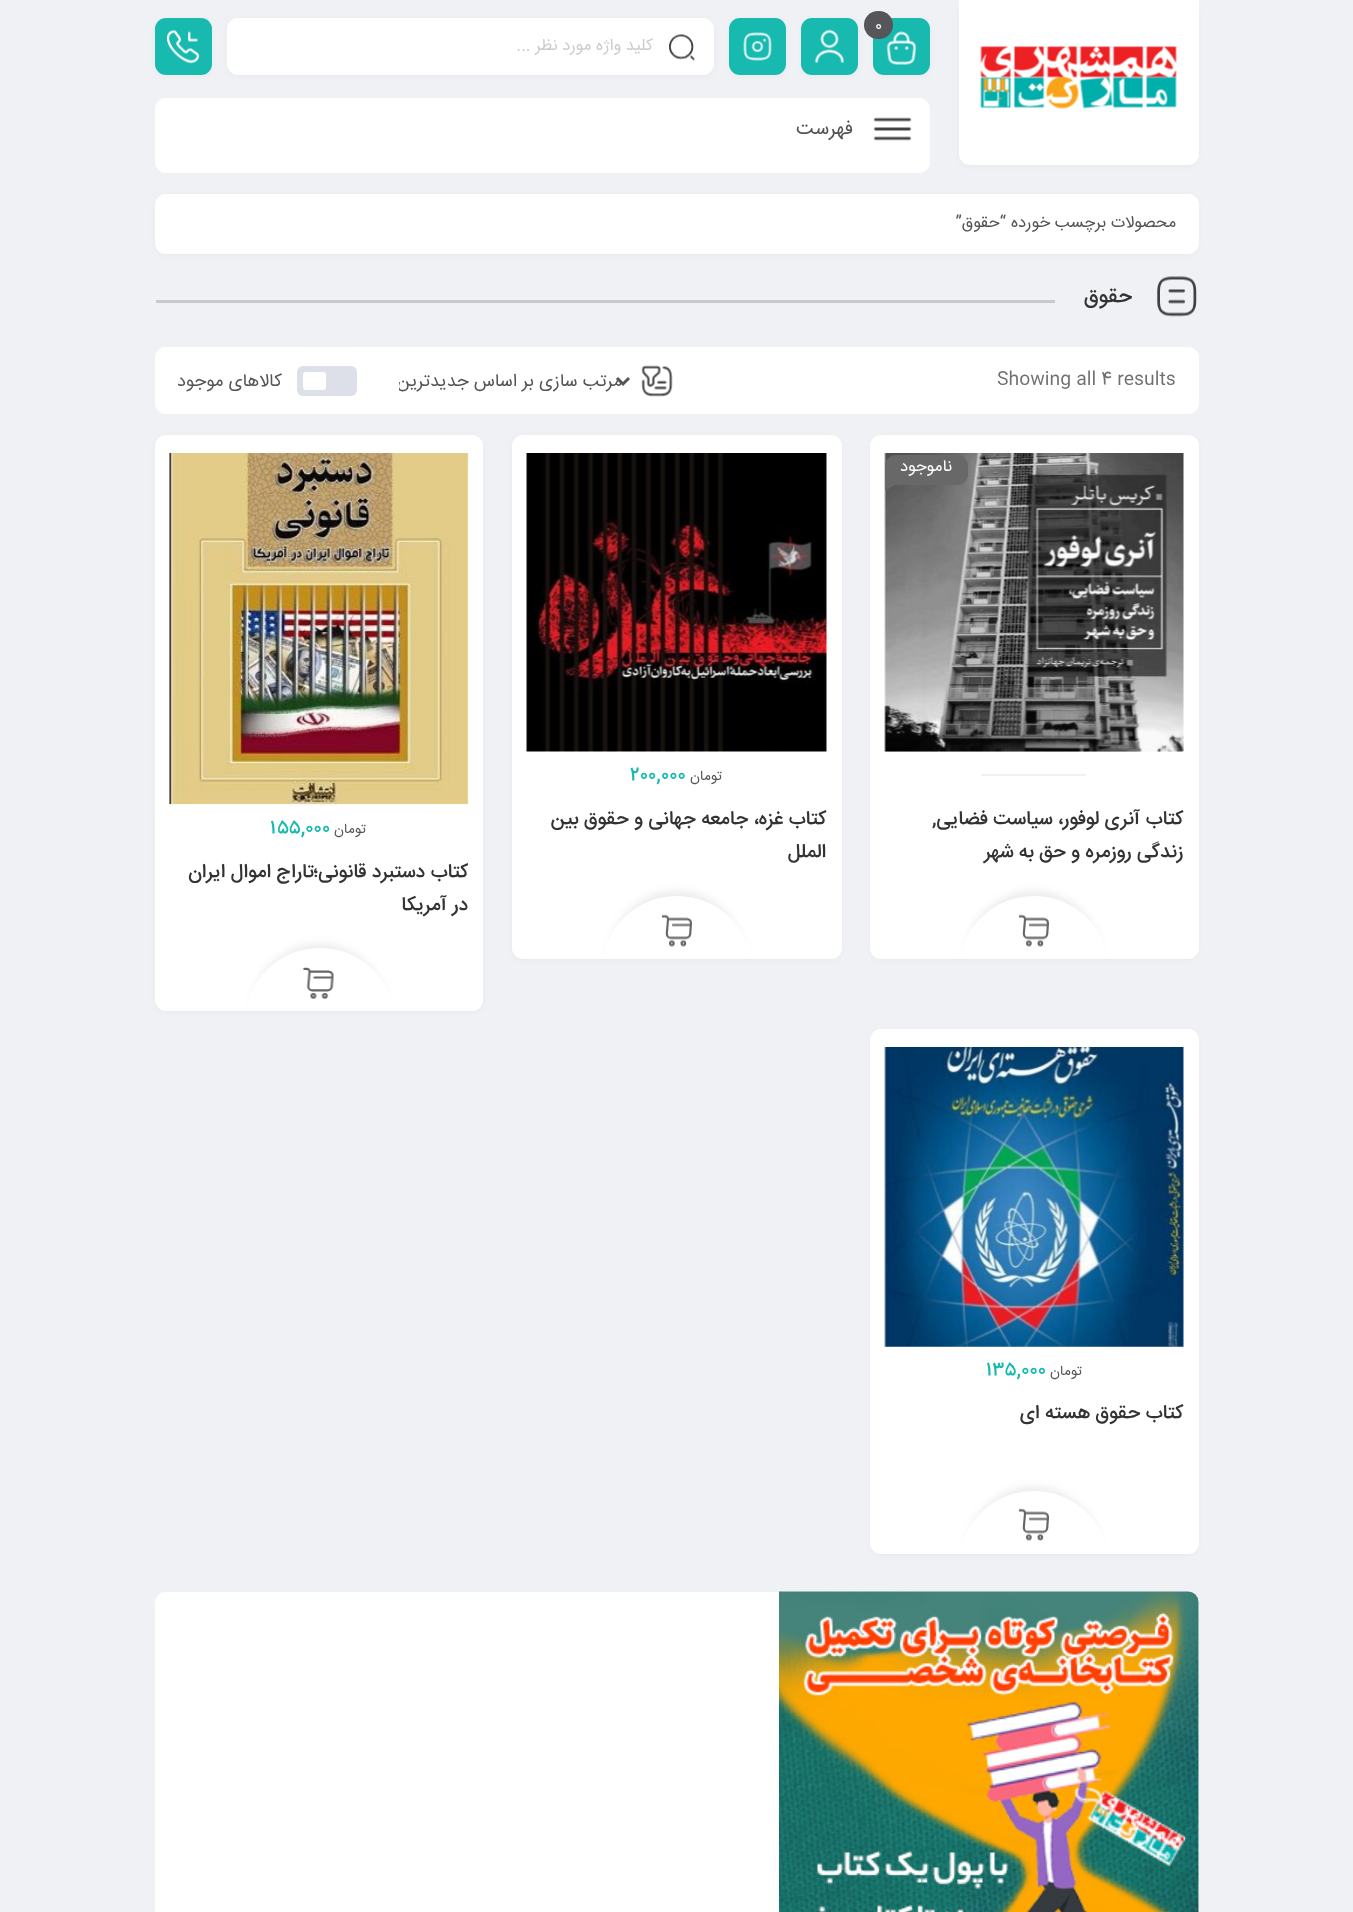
(async () => {
  const canvas = document.querySelector("canvas");
  canvas.width = 1353;
  canvas.height = 1912;
  const ctx = canvas.getContext("2d");
  ctx.miterLimit = 4;
  ctx.fontKerning = "normal";
  async function loadImage(src) {
    const img = new Image();
    img.src = src;
    await img.decode();
    return img;
  }
  let path;

  ctx.fillStyle = "#eff1f5";
  ctx.fillRect(0, 0, 1353, 1912);
  ctx.fillStyle = "rgba(0, 0, 0, 0.1)";
  ctx.filter = "blur(5px)";
  ctx.beginPath();
  ctx.roundRect(963, 6, 231, 156, 6);
  ctx.fill();
  ctx.filter = "none";
  ctx.fillStyle = "#ffffff";
  ctx.beginPath();
  ctx.roundRect(959, 0, 240, 165, [0, 0, 11, 11]);
  ctx.fill();
  ctx.drawImage(await loadImage("img/1.png"), 980, 46, 197, 63);
  ctx.fillStyle = "rgba(0, 0, 0, 0.1)";
  ctx.filter = "blur(5px)";
  ctx.beginPath();
  ctx.roundRect(878, 24, 48, 48, 6);
  ctx.fill();
  ctx.filter = "none";
  ctx.fillStyle = "#18baaf";
  ctx.beginPath();
  ctx.roundRect(873, 18, 57, 57, 11);
  ctx.fill();
  ctx.drawImage(await loadImage("img/2.png"), 886, 31, 31, 34);
  ctx.fillStyle = "rgba(0, 0, 0, 0.1)";
  ctx.filter = "blur(5px)";
  ctx.beginPath();
  ctx.roundRect(806, 24, 48, 48, 6);
  ctx.fill();
  ctx.filter = "none";
  ctx.fillStyle = "#55555a";
  ctx.beginPath();
  ctx.roundRect(864, 11, 29, 28, 14);
  ctx.fill();
  ctx.fillStyle = "#18baaf";
  ctx.beginPath();
  ctx.roundRect(801, 18, 57, 57, 11);
  ctx.fill();
  ctx.drawImage(await loadImage("img/3.png"), 815, 29, 29, 35);
  ctx.fillStyle = "rgba(0, 0, 0, 0.1)";
  ctx.filter = "blur(5px)";
  ctx.beginPath();
  ctx.roundRect(734, 24, 48, 48, 6);
  ctx.fill();
  ctx.filter = "none";
  ctx.fillStyle = "#18baaf";
  ctx.beginPath();
  ctx.roundRect(729, 18, 57, 57, 11);
  ctx.fill();
  ctx.drawImage(await loadImage("img/4.png"), 743, 32, 29, 29);
  ctx.fillStyle = "rgba(0, 0, 0, 0.1)";
  ctx.filter = "blur(5px)";
  ctx.beginPath();
  ctx.roundRect(159, 24, 48, 48, 6);
  ctx.fill();
  ctx.filter = "none";
  ctx.fillStyle = "#18baaf";
  ctx.beginPath();
  ctx.roundRect(155, 18, 57, 57, 11);
  ctx.fill();
  ctx.drawImage(await loadImage("img/5.png"), 166, 30, 33, 34);
  ctx.fillStyle = "rgba(0, 0, 0, 0.1)";
  ctx.filter = "blur(5px)";
  ctx.beginPath();
  ctx.roundRect(231, 24, 479, 48, 6);
  ctx.fill();
  ctx.filter = "none";
  ctx.fillStyle = "#ffffff";
  ctx.beginPath();
  ctx.roundRect(227, 18, 487, 57, 11);
  ctx.fill();
  ctx.drawImage(await loadImage("img/6.png"), 669, 34, 26, 27);
  ctx.beginPath();
  ctx.roundRect(155, 98, 775, 75, 11);
  ctx.fill();
  ctx.drawImage(await loadImage("img/7.png"), 873, 117, 39, 24);
  ctx.fillStyle = "rgba(0, 0, 0, 0.1)";
  ctx.filter = "blur(5px)";
  ctx.beginPath();
  ctx.roundRect(159, 200, 1035, 51, 6);
  ctx.fill();
  ctx.filter = "none";
  ctx.fillStyle = "#ffffff";
  ctx.beginPath();
  ctx.roundRect(155, 194, 1044, 60, 11);
  ctx.fill();
  ctx.drawImage(await loadImage("img/8.png"), 1157, 276, 40, 41);
  ctx.fillStyle = "#c8cacd";
  ctx.fillRect(156, 300, 899, 3);
  ctx.fillStyle = "#ffffff";
  ctx.beginPath();
  ctx.roundRect(155, 347, 1044, 67, 11);
  ctx.fill();
  ctx.drawImage(await loadImage("img/9.png"), 641, 365, 32, 32);
  path = new Path2D("M617 378L623 384L629 378");
  ctx.strokeStyle = "#555555";
  ctx.lineWidth = 3;
  ctx.stroke(path);
  ctx.fillStyle = "#dde0e8";
  ctx.beginPath();
  ctx.roundRect(297, 366, 60, 30, 6);
  ctx.fill();
  ctx.fillStyle = "#ffffff";
  ctx.beginPath();
  ctx.roundRect(303, 372, 23, 18, 3);
  ctx.fill();
  ctx.fillStyle = "rgba(0, 0, 0, 0.1)";
  ctx.filter = "blur(5px)";
  ctx.beginPath();
  ctx.roundRect(875, 441, 319, 515, 6);
  ctx.fill();
  ctx.filter = "none";
  ctx.fillStyle = "#ffffff";
  ctx.beginPath();
  ctx.roundRect(870, 435, 329, 524, 11);
  ctx.fill();
  ctx.drawImage(await loadImage("img/10.png"), 884, 453, 300, 299);
  ctx.fillStyle = "#686868";
  ctx.beginPath();
  ctx.roundRect(885, 455, 83, 30, [11, 11, 11, 0]);
  ctx.fill();
  path = new Path2D("M885 483H898.5L885 490.5Z");
  ctx.fill(path);
  ctx.fillStyle = "#f1f1f1";
  ctx.fillRect(981, 774, 105, 2);
  ctx.save();
  path = new Path2D("M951 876H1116V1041H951ZM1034 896C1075.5 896 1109 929.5 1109 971C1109 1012.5 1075.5 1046 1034 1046C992.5 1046 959 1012.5 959 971C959 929.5 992.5 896 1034 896Z");
  ctx.clip(path, "evenodd");
  ctx.fillStyle = "rgba(0, 0, 0, 0.08)";
  ctx.filter = "blur(4.5px)";
  ctx.beginPath();
  ctx.roundRect(966, 891, 135, 135, 67.5);
  ctx.fill();
  ctx.filter = "none";
  ctx.restore();
  ctx.drawImage(await loadImage("img/11.png"), 1018, 914, 31, 33);
  ctx.fillStyle = "rgba(0, 0, 0, 0.1)";
  ctx.filter = "blur(5px)";
  ctx.beginPath();
  ctx.roundRect(516, 441, 321, 515, 6);
  ctx.fill();
  ctx.filter = "none";
  ctx.fillStyle = "#ffffff";
  ctx.beginPath();
  ctx.roundRect(512, 435, 330, 524, 11);
  ctx.fill();
  ctx.drawImage(await loadImage("img/12.png"), 526, 453, 301, 299);
  ctx.save();
  path = new Path2D("M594 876H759V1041H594ZM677 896C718.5 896 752 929.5 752 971C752 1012.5 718.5 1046 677 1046C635.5 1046 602 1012.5 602 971C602 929.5 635.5 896 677 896Z");
  ctx.clip(path, "evenodd");
  ctx.fillStyle = "rgba(0, 0, 0, 0.08)";
  ctx.filter = "blur(4.5px)";
  ctx.beginPath();
  ctx.roundRect(609, 891, 135, 135, 67.5);
  ctx.fill();
  ctx.filter = "none";
  ctx.restore();
  ctx.drawImage(await loadImage("img/11.png"), 661, 914, 31, 33);
  ctx.fillStyle = "rgba(0, 0, 0, 0.1)";
  ctx.filter = "blur(5px)";
  ctx.beginPath();
  ctx.roundRect(159, 441, 320, 567, 6);
  ctx.fill();
  ctx.filter = "none";
  ctx.fillStyle = "#ffffff";
  ctx.beginPath();
  ctx.roundRect(155, 435, 328, 576, 11);
  ctx.fill();
  ctx.drawImage(await loadImage("img/13.png"), 169, 453, 300, 352);
  ctx.save();
  path = new Path2D("M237 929H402V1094H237ZM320 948C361.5 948 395 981.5 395 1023C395 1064.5 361.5 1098 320 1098C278.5 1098 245 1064.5 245 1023C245 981.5 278.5 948 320 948Z");
  ctx.clip(path, "evenodd");
  ctx.fillStyle = "rgba(0, 0, 0, 0.08)";
  ctx.filter = "blur(4.5px)";
  ctx.beginPath();
  ctx.roundRect(252, 944, 135, 135, 67.5);
  ctx.fill();
  ctx.filter = "none";
  ctx.restore();
  ctx.drawImage(await loadImage("img/14.png"), 302, 967, 32, 32);
  ctx.fillStyle = "rgba(0, 0, 0, 0.1)";
  ctx.filter = "blur(5px)";
  ctx.beginPath();
  ctx.roundRect(875, 1035, 319, 516, 6);
  ctx.fill();
  ctx.filter = "none";
  ctx.fillStyle = "#ffffff";
  ctx.beginPath();
  ctx.roundRect(870, 1029, 329, 525, 11);
  ctx.fill();
  ctx.drawImage(await loadImage("img/15.png"), 884, 1047, 300, 300);
  ctx.save();
  path = new Path2D("M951 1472H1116V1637H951ZM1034 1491C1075.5 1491 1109 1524.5 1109 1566C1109 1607.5 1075.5 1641 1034 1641C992.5 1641 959 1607.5 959 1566C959 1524.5 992.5 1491 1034 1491Z");
  ctx.clip(path, "evenodd");
  ctx.fillStyle = "rgba(0, 0, 0, 0.08)";
  ctx.filter = "blur(4.5px)";
  ctx.beginPath();
  ctx.roundRect(966, 1487, 135, 135, 67.5);
  ctx.fill();
  ctx.filter = "none";
  ctx.restore();
  ctx.drawImage(await loadImage("img/11.png"), 1018, 1508, 31, 33);
  ctx.beginPath();
  ctx.roundRect(155, 1592, 1044, 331, 11);
  ctx.fill();
  ctx.drawImage(await loadImage("img/16.png"), 779, 1591, 420, 321);
  ctx.font = "15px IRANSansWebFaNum";
  ctx.fillText("0", 875, 30);
  ctx.direction = "rtl";
  ctx.font = "16.5px IRANSansWebFaNum";
  ctx.fillStyle = "#cbccd2";
  ctx.fillText("کلید واژه مورد نظر ...", 653, 50);
  ctx.font = "19.5px IRANSansWebFaNum";
  ctx.fillStyle = "#555555";
  ctx.fillText("فهرست", 853, 134);
  ctx.font = "16.5px IRANSansWebFaNum";
  ctx.fillText("محصولات برچسب خورده", 1176, 227);
  ctx.fillText("“حقوق”", 1006, 227);
  ctx.font = "500 21px IRANSansWebFaNum";
  ctx.fillStyle = "#333333";
  ctx.fillText("حقوق", 1132, 302);
  ctx.direction = "ltr";
  ctx.font = "18px IRANSansWebFaNum";
  ctx.fillStyle = "#707070";
  ctx.fillText("Showing all 4 results", 997, 384);
  ctx.save();
  ctx.beginPath();
  ctx.rect(399, 365, 222, 33);
  ctx.clip();
  ctx.direction = "rtl";
  ctx.fillStyle = "#555555";
  ctx.fillText("مرتب سازی بر اساس جدیدترین", 622, 386);
  ctx.restore();
  ctx.direction = "rtl";
  ctx.fillStyle = "#555555";
  ctx.fillText("کالاهای موجود", 282, 386);
  ctx.font = "16.5px IRANSansWebFaNum";
  ctx.fillStyle = "#ffffff";
  ctx.fillText("ناموجود", 952, 471);
  ctx.font = "500 19.5px IRANSansWebFaNum";
  ctx.fillStyle = "#333333";
  ctx.fillText("کتاب آنری لوفور، سیاست فضایی,", 1183, 824);
  ctx.fillText("زندگی روزمره و حق به شهر", 1183, 857);
  ctx.letterSpacing = "-0.25px";
  ctx.font = "14px IRANSansWebFaNum";
  ctx.fillStyle = "#555555";
  ctx.fillText("تومان", 722, 780);
  ctx.direction = "ltr";
  ctx.font = "500 19.5px IRANSansWebFaNum";
  ctx.fillStyle = "#18baaf";
  ctx.fillText("۲۰۰,۰۰۰", 630, 780);
  ctx.letterSpacing = "0px";
  ctx.direction = "rtl";
  ctx.fillStyle = "#333333";
  ctx.fillText("کتاب غزه، جامعه جهانی و حقوق بین", 826, 824);
  ctx.fillText("الملل", 826, 857);
  ctx.letterSpacing = "-0.25px";
  ctx.font = "14px IRANSansWebFaNum";
  ctx.fillStyle = "#555555";
  ctx.fillText("تومان", 366, 833);
  ctx.direction = "ltr";
  ctx.font = "500 19.5px IRANSansWebFaNum";
  ctx.fillStyle = "#18baaf";
  ctx.fillText("۱۵۵,۰۰۰", 270, 833);
  ctx.save();
  ctx.beginPath();
  ctx.rect(170, 855, 298, 63);
  ctx.clip();
  ctx.letterSpacing = "0px";
  ctx.direction = "rtl";
  ctx.fillStyle = "#333333";
  ctx.fillText("کتاب دستبرد قانونی؛تاراج اموال ایران", 468, 877);
  ctx.restore();
  ctx.letterSpacing = "0px";
  ctx.direction = "rtl";
  ctx.fillStyle = "#333333";
  ctx.fillText("در آمریکا", 468, 910);
  ctx.letterSpacing = "-0.25px";
  ctx.font = "14px IRANSansWebFaNum";
  ctx.fillStyle = "#555555";
  ctx.fillText("تومان", 1082, 1375);
  ctx.direction = "ltr";
  ctx.font = "500 19.5px IRANSansWebFaNum";
  ctx.fillStyle = "#18baaf";
  ctx.fillText("۱۳۵,۰۰۰", 986, 1375);
  ctx.letterSpacing = "0px";
  ctx.direction = "rtl";
  ctx.fillStyle = "#333333";
  ctx.fillText("کتاب حقوق هسته ای", 1183, 1418);
})();
